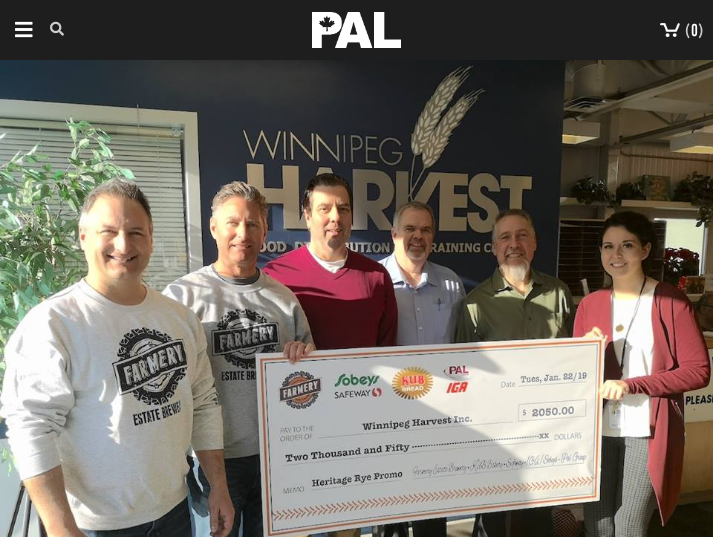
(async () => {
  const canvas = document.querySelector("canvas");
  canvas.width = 713;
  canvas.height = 537;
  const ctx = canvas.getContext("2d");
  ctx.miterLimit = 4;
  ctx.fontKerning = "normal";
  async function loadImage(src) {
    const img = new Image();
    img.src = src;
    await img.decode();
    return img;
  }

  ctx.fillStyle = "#1e1e1e";
  ctx.fillRect(0, 0, 713, 537);
  ctx.drawImage(await loadImage("img/1.png"), 15, 21, 18, 17);
  ctx.drawImage(await loadImage("img/2.png"), 50, 21, 14, 15);
  ctx.drawImage(await loadImage("img/3.png"), 312, 12, 89, 36);
  ctx.drawImage(await loadImage("img/4.png"), 660, 23, 20, 14);
  ctx.drawImage(await loadImage("img/5.png"), 0, 60, 713, 477);
  ctx.font = "18px 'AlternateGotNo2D'";
  ctx.fillStyle = "#cccccc";
  ctx.fillText("(", 685, 36);
  ctx.fillStyle = "#ffffff";
  ctx.fillText("0", 691, 36);
  ctx.fillStyle = "#cccccc";
  ctx.fillText(")", 698, 36);
})();
